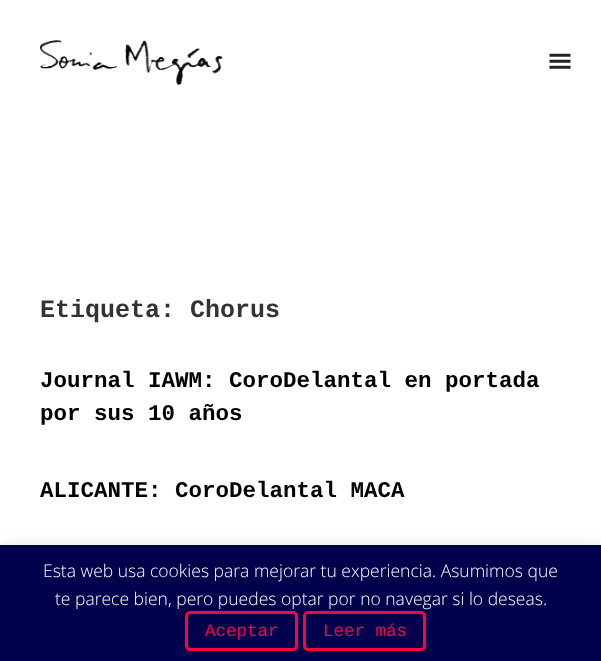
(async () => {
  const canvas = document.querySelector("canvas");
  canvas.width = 601;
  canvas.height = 661;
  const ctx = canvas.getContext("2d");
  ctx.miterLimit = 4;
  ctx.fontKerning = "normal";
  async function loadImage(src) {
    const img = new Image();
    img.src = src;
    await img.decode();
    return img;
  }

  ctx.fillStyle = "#ffffff";
  ctx.fillRect(0, 0, 601, 661);
  ctx.drawImage(await loadImage("img/1.png"), 40, 40, 183, 45);
  ctx.drawImage(await loadImage("img/2.png"), 549, 53, 22, 16);
  ctx.fillStyle = "rgba(172, 171, 171, 0.3)";
  ctx.filter = "blur(6px)";
  ctx.beginPath();
  ctx.rect(0, 544, 601, 116);
  ctx.fill();
  ctx.filter = "none";
  ctx.fillStyle = "#00004d";
  ctx.fillRect(0, 545, 601, 116);
  ctx.beginPath();
  ctx.roundRect(186.5, 612.5, 110, 37, 3.5);
  ctx.strokeStyle = "#ff0040";
  ctx.lineWidth = 3;
  ctx.stroke();
  ctx.beginPath();
  ctx.roundRect(304.5, 612.5, 120, 37, 3.5);
  ctx.stroke();
  ctx.font = "bold 25px Liberation Mono";
  ctx.fillStyle = "#333333";
  ctx.fillText("Etiqueta: Chorus", 40, 317);
  ctx.font = "bold 22.5px Liberation Mono";
  ctx.fillStyle = "#000000";
  for (const [text, x, y] of [
    ["Journal IAWM: CoroDelantal en portada", 40, 387],
    ["por sus 10 años", 40, 420],
    ["ALICANTE: CoroDelantal MACA", 40, 497],
  ]) {
    ctx.fillText(text, x, y);
  }
  ctx.font = "300 17.5px Open Sans";
  ctx.fillStyle = "#ffffff";
  ctx.fillText("Esta web usa cookies para mejorar tu experiencia. Asumimos que", 43, 577);
  ctx.fillText("te parece bien, pero puedes optar por no navegar si lo deseas.", 55, 605);
  ctx.font = "17.5px Liberation Mono";
  ctx.fillStyle = "#ff0040";
  ctx.fillText("Aceptar", 205, 636);
  ctx.fillText("Leer más", 323, 636);
})();
